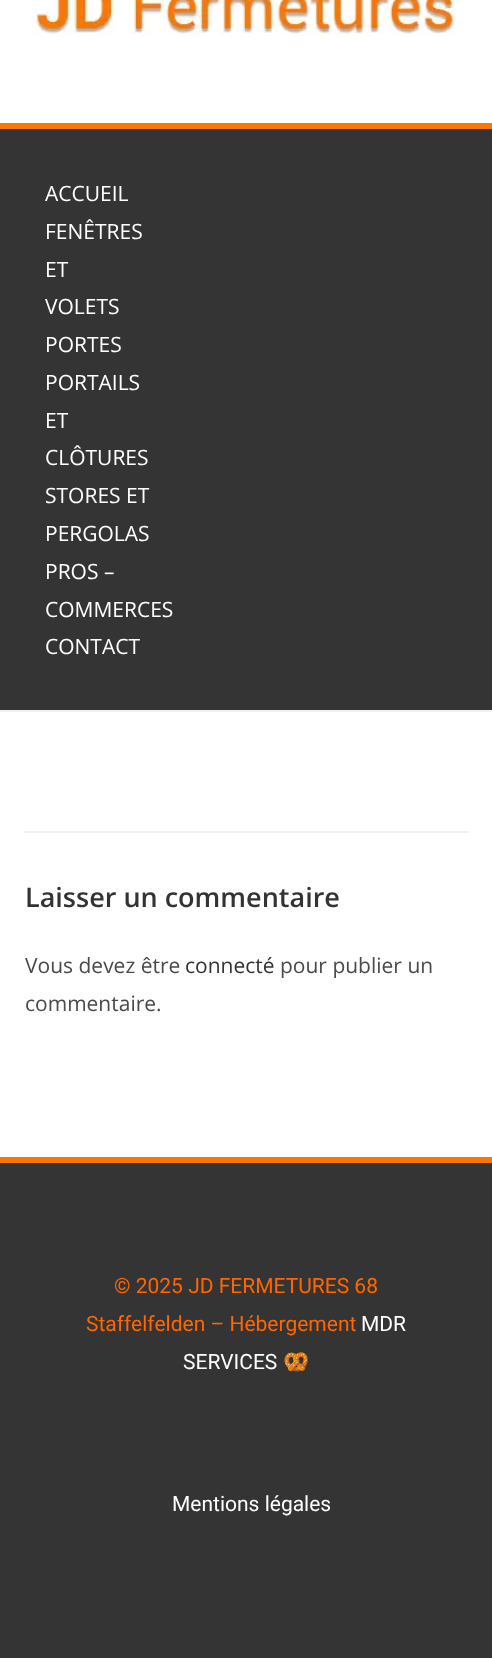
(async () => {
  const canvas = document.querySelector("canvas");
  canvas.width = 492;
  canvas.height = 1658;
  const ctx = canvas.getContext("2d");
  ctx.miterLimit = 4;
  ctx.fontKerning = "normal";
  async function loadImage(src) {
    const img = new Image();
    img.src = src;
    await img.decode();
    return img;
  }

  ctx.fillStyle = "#ffffff";
  ctx.fillRect(0, 0, 492, 1658);
  ctx.fillStyle = "#f1f1f1";
  ctx.fillRect(0, 710, 492, 2);
  ctx.drawImage(await loadImage("img/1.png"), 30, 0, 425, 37);
  for (const [x, y, w, h, color] of [
    [0, 129, 492, 581, "#343434"],
    [0, 123, 492, 6, "#fb7702"],
    [24, 831, 444, 2, "#f1f1f1"],
    [0, 1163, 492, 495, "#343434"],
    [0, 1157, 492, 6, "#fb7702"],
  ]) {
    ctx.fillStyle = color;
    ctx.fillRect(x, y, w, h);
  }
  ctx.font = "21px Open Sans";
  ctx.fillStyle = "#ffffff";
  for (const [text, x, y] of [
    ["ACCUEIL", 45, 201],
    ["FENÊTRES", 45, 239],
    ["ET", 45, 277],
    ["VOLETS", 45, 314],
    ["PORTES", 45, 352],
    ["PORTAILS", 45, 390],
    ["ET", 45, 428],
    ["CLÔTURES", 45, 465],
    ["STORES ET", 45, 503],
    ["PERGOLAS", 45, 541],
    ["PROS –", 45, 579],
    ["COMMERCES", 45, 617],
    ["CONTACT", 45, 654],
  ]) {
    ctx.fillText(text, x, y);
  }
  ctx.font = "600 27px Open Sans";
  ctx.fillStyle = "#333333";
  ctx.fillText("Laisser un commentaire", 25, 907);
  ctx.font = "21px Open Sans";
  ctx.fillStyle = "#4a4a4a";
  ctx.fillText("Vous devez être", 25, 973);
  ctx.fillStyle = "#333333";
  ctx.fillText("connecté", 185, 973);
  ctx.fillStyle = "#4a4a4a";
  ctx.fillText("pour publier un", 280, 973);
  ctx.fillText("commentaire.", 25, 1011);
  ctx.font = "21px Roboto";
  ctx.fillStyle = "#ff6600";
  ctx.fillText("© 2025 JD FERMETURES 68", 114, 1293);
  ctx.fillText("Staffelfelden – Hébergement", 86, 1331);
  ctx.fillStyle = "#ffffff";
  ctx.fillText("MDR", 361, 1331);
  ctx.fillText("SERVICES", 183, 1369);
  ctx.font = "21px Noto Color Emoji";
  ctx.fillText("🥨", 283, 1369);
  ctx.font = "21px Roboto";
  ctx.fillText("Mentions légales", 172, 1511);
})();
